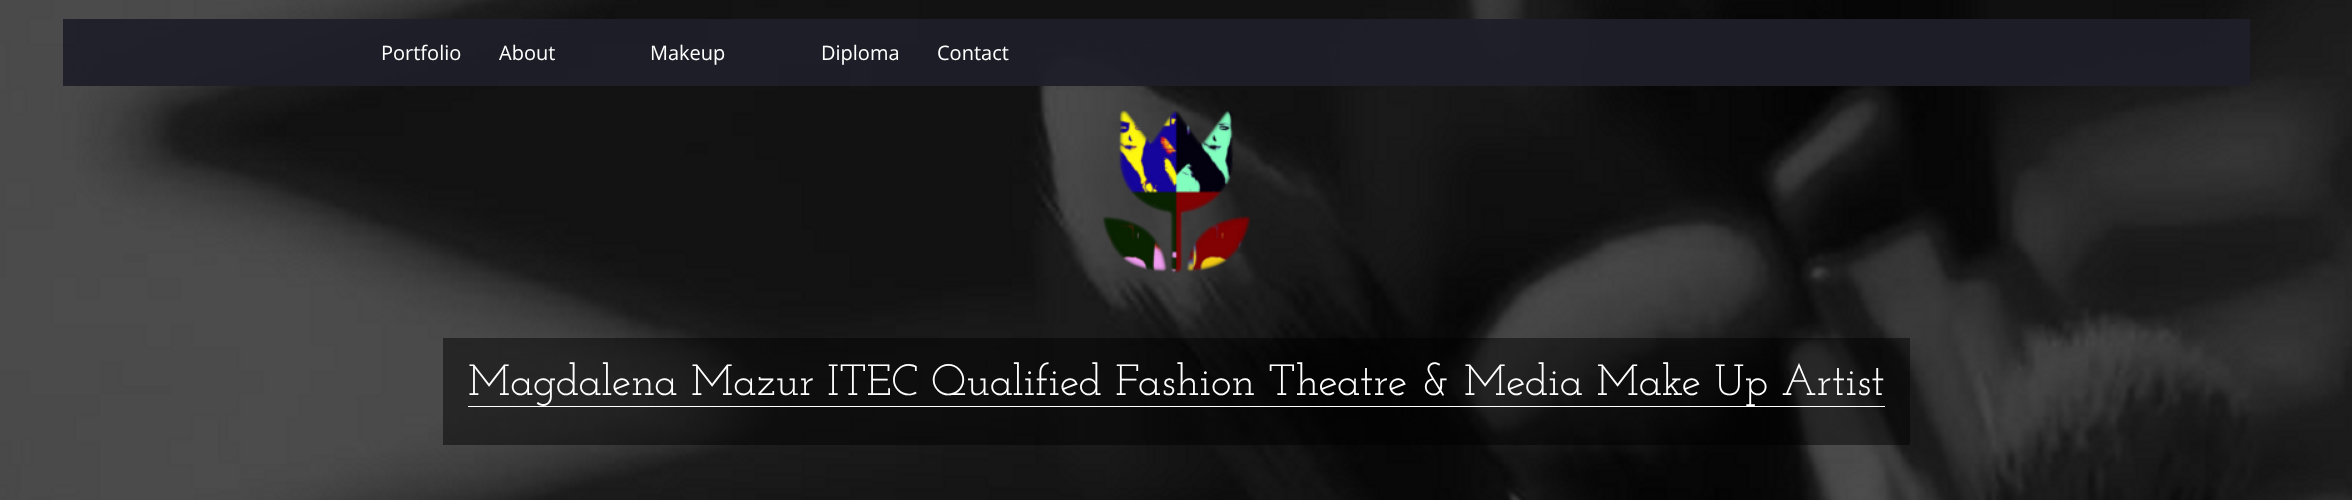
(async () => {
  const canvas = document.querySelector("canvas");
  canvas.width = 2352;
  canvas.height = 500;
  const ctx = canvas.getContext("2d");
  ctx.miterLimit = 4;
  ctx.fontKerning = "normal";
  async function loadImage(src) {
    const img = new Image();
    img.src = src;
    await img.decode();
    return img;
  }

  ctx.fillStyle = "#ffffff";
  ctx.fillRect(0, 0, 2352, 500);
  ctx.drawImage(await loadImage("img/1.png"), 0, 0, 2352, 500);
  ctx.fillStyle = "rgba(31, 31, 41, 0.95)";
  ctx.fillRect(63, 19, 2187, 67);
  ctx.drawImage(await loadImage("img/2.png"), 1102, 110, 149, 163);
  ctx.fillStyle = "rgba(0, 0, 0, 0.48)";
  ctx.fillRect(443, 338, 1467, 107);
  ctx.fillStyle = "#ffffff";
  ctx.fillRect(468, 406, 1417, 1);
  ctx.font = "20px Open Sans";
  for (const [text, x, y] of [
    ["Portfolio", 381, 60],
    ["About", 499, 60],
    ["Makeup", 650, 60],
    ["Diploma", 821, 60],
    ["Contact", 937, 60],
  ]) {
    ctx.fillText(text, x, y);
  }
  ctx.font = "43.75px Josefin Slab";
  ctx.fillText("Magdalena Mazur ITEC Qualified Fashion Theatre & Media Make Up Artist", 468, 395);
})();
